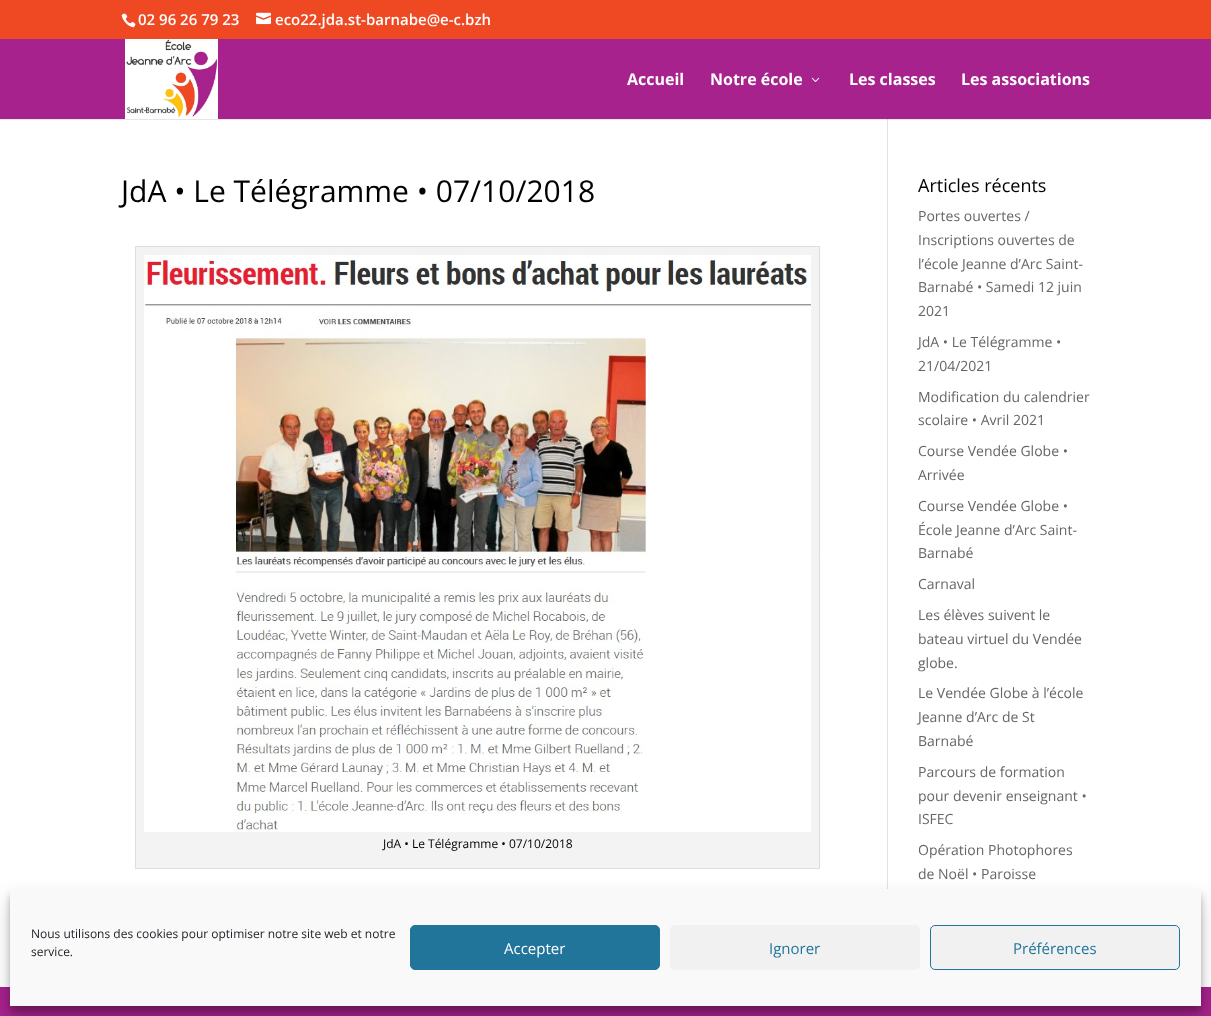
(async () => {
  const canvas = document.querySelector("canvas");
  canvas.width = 1211;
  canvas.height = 1016;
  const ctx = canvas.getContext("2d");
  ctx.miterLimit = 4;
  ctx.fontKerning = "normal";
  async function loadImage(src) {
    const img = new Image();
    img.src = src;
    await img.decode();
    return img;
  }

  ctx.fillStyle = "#ffffff";
  ctx.fillRect(0, 0, 1211, 1016);
  ctx.fillStyle = "#e6e6e6";
  ctx.fillRect(0, 119, 1211, 1);
  ctx.fillStyle = "#ef4923";
  ctx.fillRect(0, 0, 1211, 39);
  ctx.drawImage(await loadImage("img/1.png"), 121, 13, 15, 15);
  ctx.drawImage(await loadImage("img/2.png"), 256, 12, 15, 13);
  ctx.fillStyle = "#e2e2e2";
  ctx.fillRect(887, 118, 1, 771);
  ctx.fillStyle = "#a7228d";
  ctx.fillRect(0, 39, 1211, 80);
  ctx.drawImage(await loadImage("img/3.png"), 125, 39, 93, 80);
  ctx.drawImage(await loadImage("img/4.png"), 811, 77, 9, 5);
  ctx.fillStyle = "#cbcbcb";
  ctx.fillRect(887, 119, 1, 1);
  ctx.fillStyle = "#f3f3f3";
  ctx.beginPath();
  ctx.rect(135.5, 246.5, 684, 622);
  ctx.fill();
  ctx.strokeStyle = "#dddddd";
  ctx.stroke();
  ctx.drawImage(await loadImage("img/5.png"), 144, 255, 667, 577);
  ctx.fillStyle = "#a7228d";
  ctx.fillRect(0, 987, 1211, 29);
  ctx.fillStyle = "rgba(0, 0, 0, 0.23)";
  ctx.filter = "blur(3px)";
  ctx.beginPath();
  ctx.rect(10, 895, 1191, 117);
  ctx.fill();
  ctx.filter = "none";
  ctx.fillStyle = "rgba(0, 0, 0, 0.19)";
  ctx.filter = "blur(10px)";
  ctx.beginPath();
  ctx.rect(10, 899, 1191, 117);
  ctx.fill();
  ctx.filter = "none";
  ctx.fillStyle = "#f9f9f9";
  ctx.fillRect(10, 889, 1191, 117);
  ctx.fillStyle = "#21759b";
  ctx.beginPath();
  ctx.roundRect(410.5, 925.5, 249, 44, 4.5);
  ctx.fill();
  ctx.strokeStyle = "#21759b";
  ctx.stroke();
  ctx.fillStyle = "#f1f1f1";
  ctx.beginPath();
  ctx.roundRect(670, 925, 250, 45, 5);
  ctx.fill();
  ctx.beginPath();
  ctx.roundRect(930.5, 925.5, 249, 44, 4.5);
  ctx.fill();
  ctx.stroke();
  ctx.font = "600 15px Open Sans";
  ctx.fillStyle = "#ffffff";
  ctx.fillText("02 96 26 79 23", 138, 25);
  ctx.fillText("eco22.jda.st-barnabe@e-c.bzh", 275, 25);
  ctx.font = "bold 16px Open Sans";
  for (const [text, x, y] of [
    ["Accueil", 627, 85],
    ["Notre école", 710, 85],
    ["Les classes", 849, 85],
    ["Les associations", 961, 85],
  ]) {
    ctx.fillText(text, x, y);
  }
  ctx.font = "30px Open Sans";
  ctx.fillStyle = "#000000";
  ctx.fillText("JdA • Le Télégramme • 07/10/2018", 121, 202);
  ctx.font = "12px Open Sans";
  ctx.fillText("JdA • Le Télégramme • 07/10/2018", 383, 848);
  ctx.font = "18px Open Sans";
  ctx.fillText("Articles récents", 918, 192);
  ctx.font = "14px Open Sans";
  ctx.fillStyle = "#666666";
  for (const [text, x, y] of [
    ["Portes ouvertes /", 918, 221],
    ["Inscriptions ouvertes de", 918, 245],
    ["l’école Jeanne d’Arc Saint-", 918, 269],
    ["Barnabé • Samedi 12 juin", 918, 292],
    ["2021", 918, 316],
    ["JdA • Le Télégramme •", 918, 347],
    ["21/04/2021", 918, 371],
    ["Modification du calendrier", 918, 402],
    ["scolaire • Avril 2021", 918, 425],
    ["Course Vendée Globe •", 918, 456],
    ["Arrivée", 918, 480],
    ["Course Vendée Globe •", 918, 511],
    ["École Jeanne d’Arc Saint-", 918, 535],
    ["Barnabé", 918, 558],
    ["Carnaval", 918, 589],
    ["Les élèves suivent le", 918, 620],
    ["bateau virtuel du Vendée", 918, 644],
    ["globe.", 918, 668],
    ["Le Vendée Globe à l’école", 918, 698],
    ["Jeanne d’Arc de St", 918, 722],
    ["Barnabé", 918, 746],
    ["Parcours de formation", 918, 777],
    ["pour devenir enseignant •", 918, 801],
    ["ISFEC", 918, 824],
    ["Opération Photophores", 918, 855],
    ["de Noël • Paroisse", 918, 879],
  ]) {
    ctx.fillText(text, x, y);
  }
  ctx.font = "12px Open Sans";
  ctx.fillStyle = "#191e23";
  ctx.fillText("Nous utilisons des cookies pour optimiser notre site web et notre", 31, 938);
  ctx.fillText("service.", 31, 956);
  ctx.font = "15px Open Sans";
  ctx.fillStyle = "#ffffff";
  ctx.fillText("Accepter", 504, 954);
  ctx.fillStyle = "#21759b";
  ctx.fillText("Ignorer", 769, 954);
  ctx.fillText("Préférences", 1013, 954);
})();
